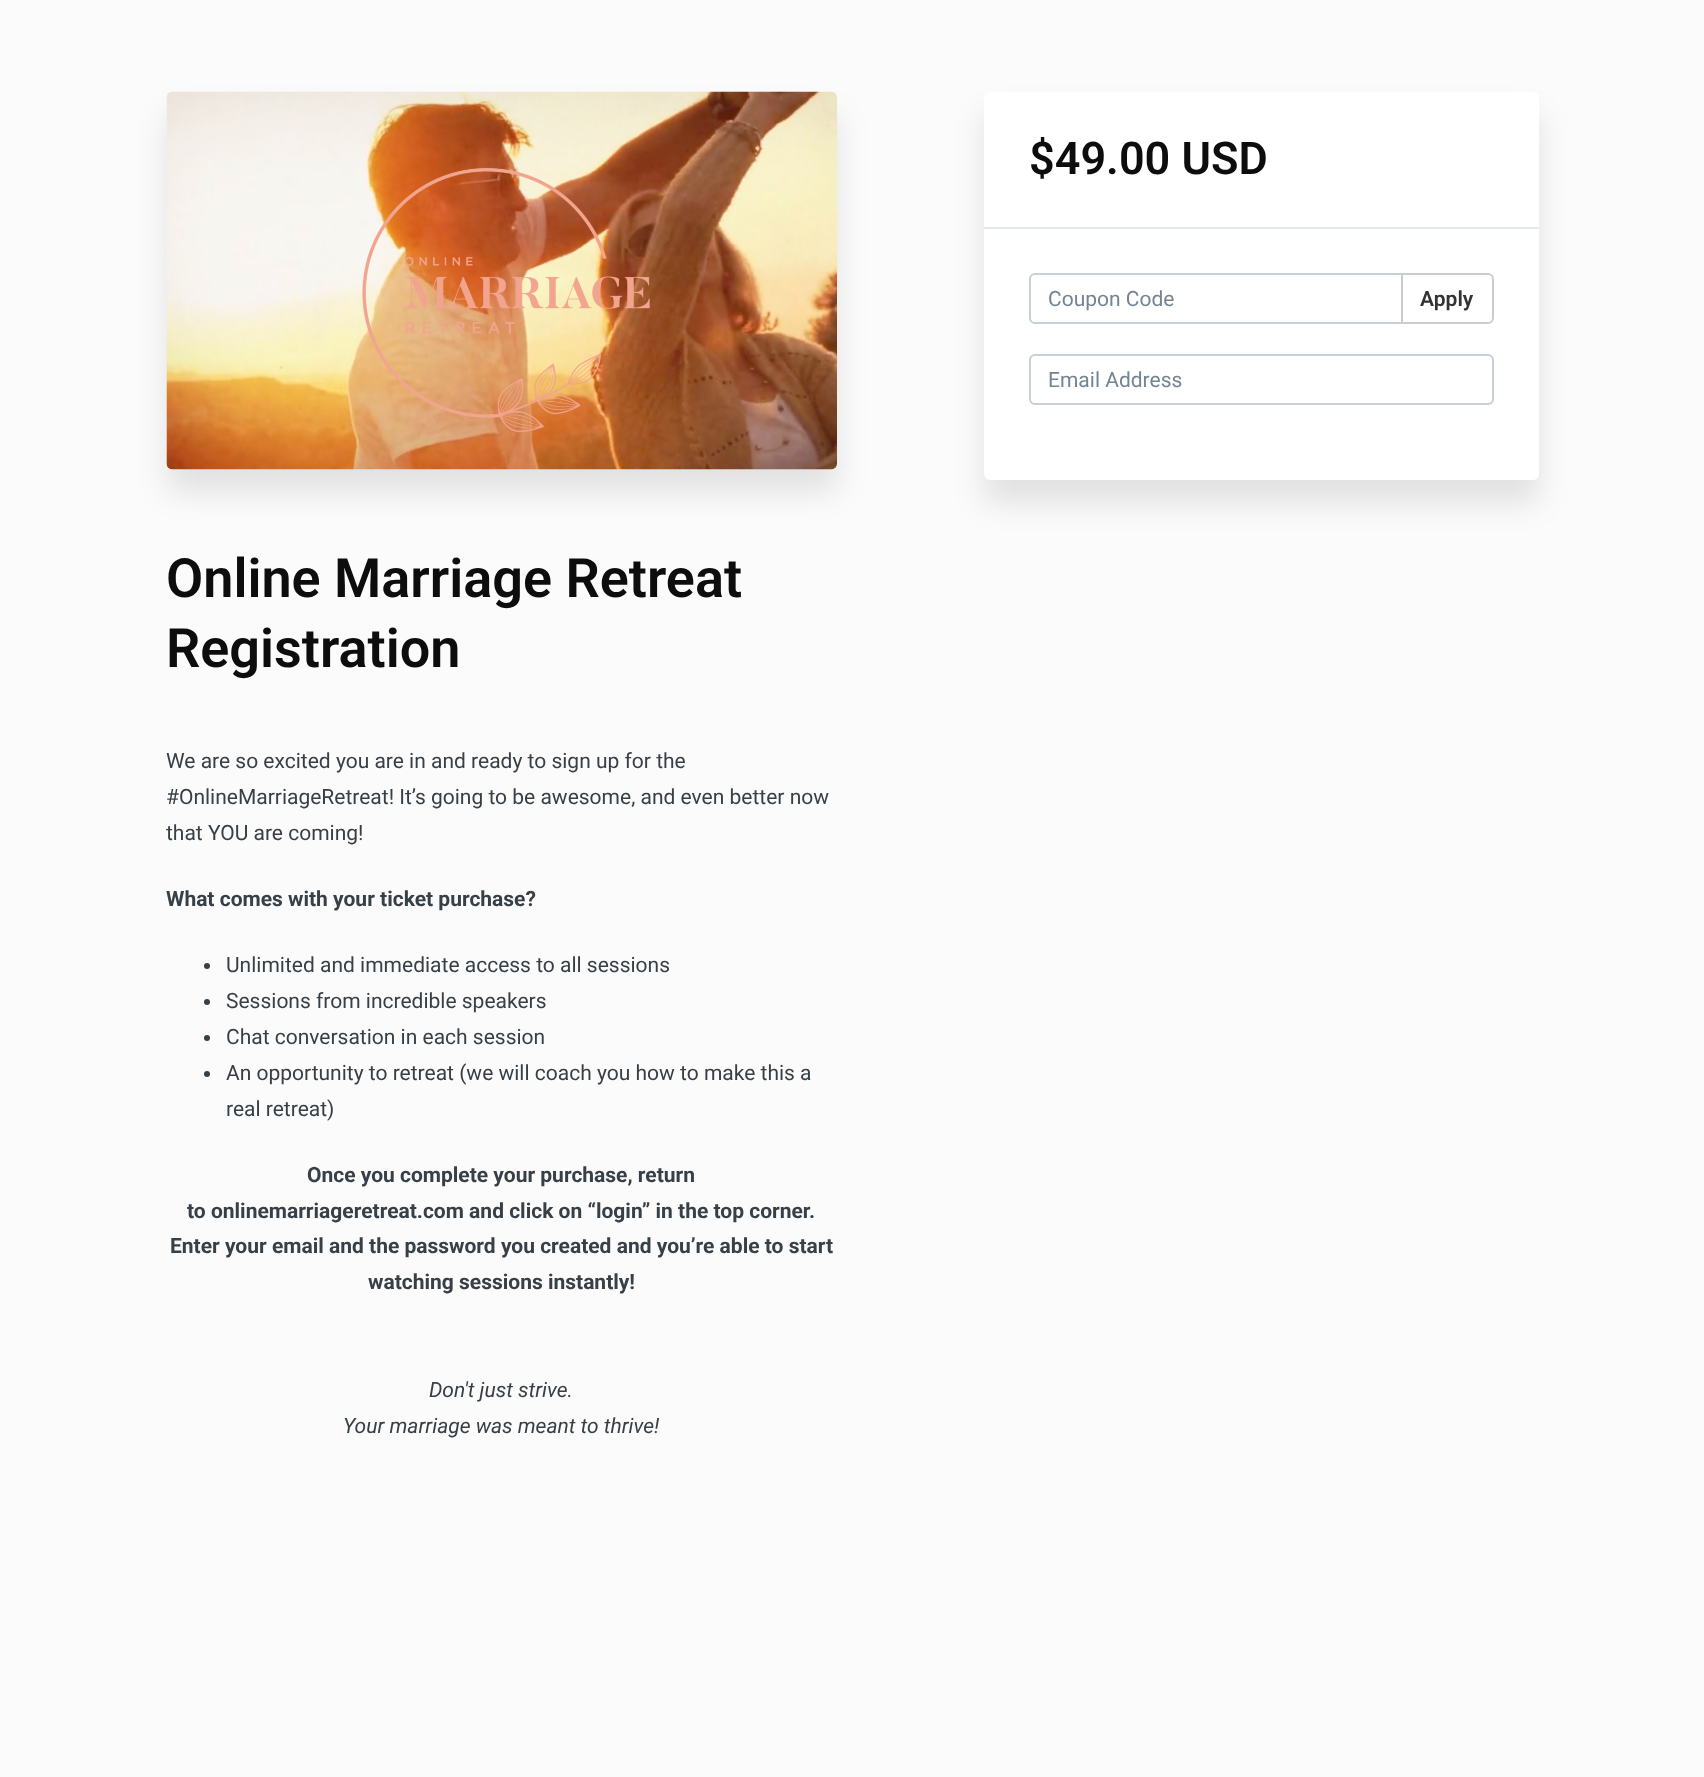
(async () => {
  const canvas = document.querySelector("canvas");
  canvas.width = 1704;
  canvas.height = 1777;
  const ctx = canvas.getContext("2d");
  ctx.miterLimit = 4;
  ctx.fontKerning = "normal";
  async function loadImage(src) {
    const img = new Image();
    img.src = src;
    await img.decode();
    return img;
  }

  ctx.fillStyle = "#fbfbfb";
  ctx.fillRect(0, 0, 1704, 1777);
  ctx.fillStyle = "rgba(0, 0, 0, 0.1)";
  ctx.filter = "blur(15px)";
  ctx.beginPath();
  ctx.roundRect(984, 114, 555, 389, 6);
  ctx.fill();
  ctx.filter = "none";
  ctx.fillStyle = "#ffffff";
  ctx.beginPath();
  ctx.roundRect(984, 92, 555, 388, 6);
  ctx.fill();
  ctx.fillStyle = "#e5e9e9";
  ctx.fillRect(984, 227, 555, 2);
  ctx.beginPath();
  ctx.roundRect(1030, 274, 372, 49, [5, 0, 0, 5]);
  ctx.strokeStyle = "#c7cfd8";
  ctx.lineWidth = 2;
  ctx.stroke();
  ctx.fillStyle = "#ffffff";
  ctx.beginPath();
  ctx.roundRect(1402, 274, 91, 49, [0, 5, 5, 0]);
  ctx.fill();
  ctx.strokeStyle = "#cccccc";
  ctx.stroke();
  ctx.beginPath();
  ctx.roundRect(1030, 355, 463, 49, 5);
  ctx.strokeStyle = "#c7cfd8";
  ctx.stroke();
  ctx.fillStyle = "rgba(0, 0, 0, 0.1)";
  ctx.filter = "blur(15px)";
  ctx.beginPath();
  ctx.roundRect(167, 114, 670, 378, 6);
  ctx.fill();
  ctx.filter = "none";
  ctx.drawImage(await loadImage("img/1.png"), 166, 91, 671, 379);
  ctx.fillStyle = "#373f47";
  ctx.beginPath();
  ctx.arc(207, 966, 3, 0, Math.PI * 2);
  ctx.fill();
  ctx.beginPath();
  ctx.arc(207, 1002, 3, 0, Math.PI * 2);
  ctx.fill();
  ctx.beginPath();
  ctx.arc(207, 1038, 3, 0, Math.PI * 2);
  ctx.fill();
  ctx.beginPath();
  ctx.arc(207, 1074, 3, 0, Math.PI * 2);
  ctx.fill();
  ctx.font = "600 45px Roboto";
  ctx.fillStyle = "#0d0d0d";
  ctx.fillText("$49.00 USD", 1029, 174);
  ctx.font = "21px Roboto";
  ctx.fillStyle = "#748493";
  ctx.fillText("Coupon Code", 1048, 306);
  ctx.font = "600 21px Roboto";
  ctx.fillStyle = "#333333";
  ctx.fillText("Apply", 1420, 306);
  ctx.font = "21px Roboto";
  ctx.fillStyle = "#748493";
  ctx.fillText("Email Address", 1048, 387);
  ctx.font = "600 54px Roboto";
  ctx.fillStyle = "#0d0d0d";
  ctx.fillText("Online Marriage Retreat", 166, 597);
  ctx.fillText("Registration", 166, 667);
  ctx.font = "21px Roboto";
  ctx.fillStyle = "#373f47";
  for (const [text, x, y] of [
    ["We are so excited you are in and ready to sign up for the", 166, 768],
    ["#OnlineMarriageRetreat! It’s going to be awesome, and even better now", 166, 804],
    ["that YOU are coming!", 166, 840],
  ]) {
    ctx.fillText(text, x, y);
  }
  ctx.font = "bold 21px Roboto";
  ctx.fillText("What comes with your ticket purchase?", 166, 906);
  ctx.font = "21px Roboto";
  for (const [text, x, y] of [
    ["Unlimited and immediate access to all sessions", 226, 972],
    ["Sessions from incredible speakers", 226, 1008],
    ["Chat conversation in each session", 226, 1044],
    ["An opportunity to retreat (we will coach you how to make this a", 226, 1080],
    ["real retreat)", 226, 1116],
  ]) {
    ctx.fillText(text, x, y);
  }
  ctx.font = "bold 21px Roboto";
  for (const [text, x, y] of [
    ["Once you complete your purchase, return", 307, 1182],
    ["to onlinemarriageretreat.com and click on “login” in the top corner.", 187, 1218],
    ["Enter your email and the password you created and you’re able to start", 170, 1253],
    ["watching sessions instantly!", 368, 1289],
  ]) {
    ctx.fillText(text, x, y);
  }
  ctx.font = "italic 21px Roboto";
  ctx.fillText("Don't just strive.", 429, 1397);
  ctx.fillText("Your marriage was meant to thrive!", 343, 1433);
})();
